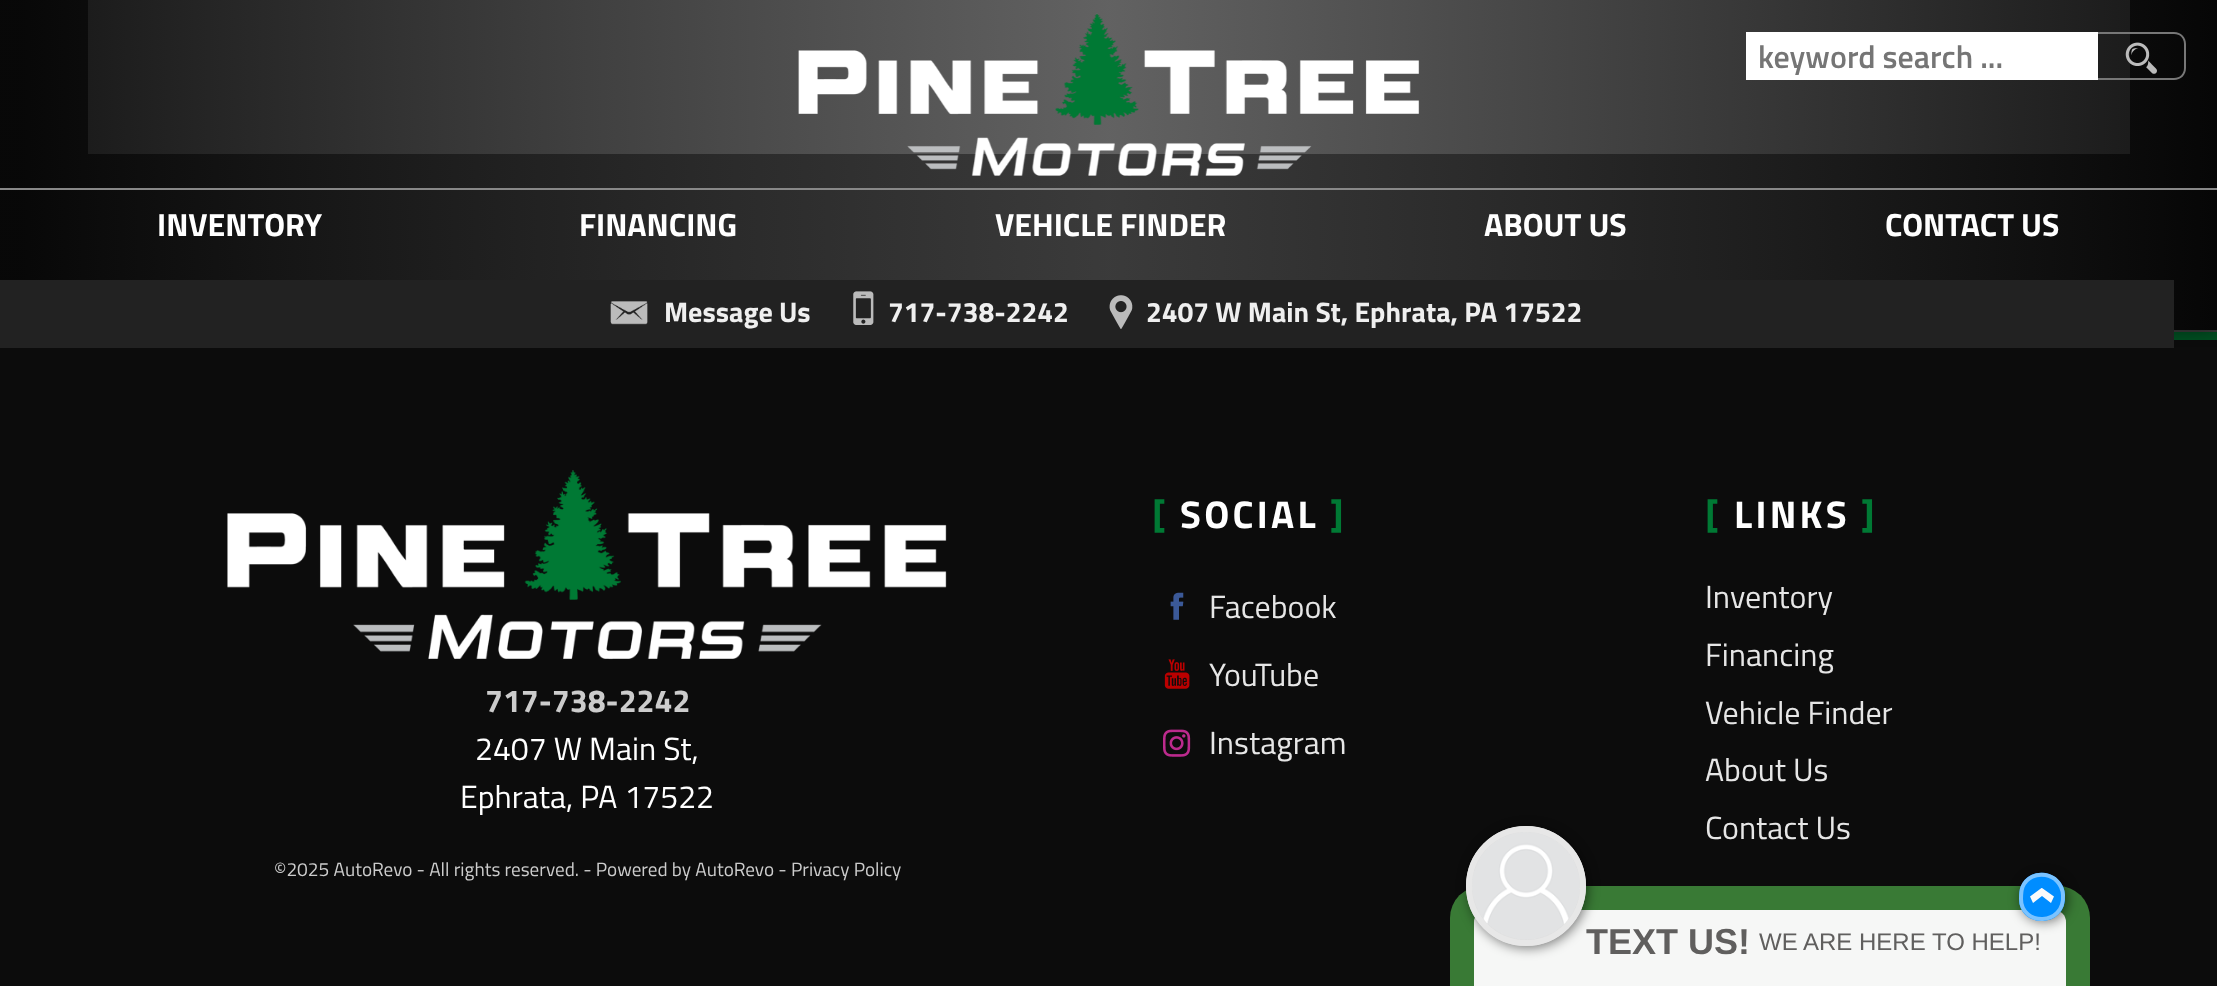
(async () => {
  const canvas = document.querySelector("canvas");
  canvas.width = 2217;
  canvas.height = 986;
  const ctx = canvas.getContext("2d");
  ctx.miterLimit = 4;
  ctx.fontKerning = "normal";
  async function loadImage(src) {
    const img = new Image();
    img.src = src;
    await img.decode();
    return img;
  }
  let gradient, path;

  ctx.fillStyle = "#3c3c3c";
  ctx.fillRect(0, 0, 2217, 986);
  for (const [x, y, w, h, color] of [
    [88, 0, 2042, 154, "#d8d8d8"],
    [0, 340, 2217, 646, "#0c0c0c"],
    [2174, 332, 43, 8, "#005022"],
  ]) {
    ctx.fillStyle = color;
    ctx.fillRect(x, y, w, h);
  }
  ctx.save();
  ctx.beginPath();
  ctx.rect(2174, 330, 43, 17);
  ctx.clip();
  ctx.fillStyle = "rgba(0, 0, 0, 0.5)";
  ctx.filter = "blur(10px)";
  ctx.beginPath();
  ctx.rect(0, 0, 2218, 330);
  ctx.fill();
  ctx.filter = "none";
  ctx.restore();
  gradient = ctx.createLinearGradient(0, 165, 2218, 165);
  gradient.addColorStop(0, "rgba(2, 2, 2, 0.9)");
  gradient.addColorStop(0.01, "rgba(2, 2, 2, 0.9)");
  gradient.addColorStop(0.5, "rgba(58, 58, 58, 0.75)");
  gradient.addColorStop(1, "rgba(0, 0, 0, 0.9)");
  ctx.fillStyle = gradient;
  ctx.fillRect(0, 0, 2217, 330);
  ctx.drawImage(await loadImage("img/1.png"), 798, 13, 622, 163);
  ctx.fillStyle = "#ffffff";
  ctx.fillRect(1746, 32, 352, 48);
  ctx.fillStyle = "#777777";
  path = new Path2D("M2098 32H2174C2181 32 2186 37 2186 44V68C2186 75 2181 80 2174 80H2098ZM2098 34H2174C2180 34 2184 38 2184 44V68C2184 74 2180 78 2174 78H2098Z");
  ctx.fill(path, "evenodd");
  ctx.drawImage(await loadImage("img/2.png"), 2125, 42, 32, 32);
  ctx.fillStyle = "#222222";
  ctx.fillRect(0, 280, 2174, 68);
  ctx.drawImage(await loadImage("img/3.png"), 610, 301, 38, 24);
  ctx.drawImage(await loadImage("img/4.png"), 853, 291, 21, 34);
  ctx.drawImage(await loadImage("img/5.png"), 1109, 295, 24, 34);
  ctx.fillStyle = "#888888";
  ctx.fillRect(0, 188, 2217, 2);
  ctx.drawImage(await loadImage("img/6.png"), 227, 470, 720, 190);
  ctx.drawImage(await loadImage("img/7.png"), 1170, 592, 14, 28);
  ctx.drawImage(await loadImage("img/8.png"), 1164, 659, 26, 30);
  ctx.drawImage(await loadImage("img/9.png"), 1163, 729, 28, 28);
  ctx.fillStyle = "#397a35";
  ctx.beginPath();
  ctx.roundRect(1450, 886, 640, 100, [32, 32, 0, 0]);
  ctx.fill();
  ctx.fillStyle = "#f6f7f6";
  ctx.beginPath();
  ctx.roundRect(1474, 910, 592, 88, 12);
  ctx.fill();
  ctx.fillStyle = "rgba(0, 0, 0, 0.5)";
  ctx.filter = "blur(6px)";
  ctx.beginPath();
  ctx.roundRect(1468, 828, 120, 120, 60);
  ctx.fill();
  ctx.filter = "none";
  ctx.fillStyle = "#dddddd";
  ctx.beginPath();
  ctx.arc(1526, 886, 60, 0, Math.PI * 2);
  ctx.fill();
  ctx.drawImage(await loadImage("img/10.png"), 1472, 832, 108, 108);
  ctx.beginPath();
  ctx.arc(1526, 886, 57, 0, Math.PI * 2);
  ctx.strokeStyle = "#e7e7e7";
  ctx.lineWidth = 6;
  ctx.stroke();
  ctx.drawImage(await loadImage("img/11.png"), 1484, 920, 84, 4);
  ctx.fillStyle = "rgba(0, 0, 0, 0.5)";
  ctx.filter = "blur(6px)";
  ctx.beginPath();
  ctx.roundRect(2020, 876, 48, 46, 22);
  ctx.fill();
  ctx.filter = "none";
  ctx.fillStyle = "#008dff";
  path = new Path2D("M2019 899C2019 895 2019 891 2021 886C2030 865 2063 870 2065 895C2067 929 2019 929 2019 899Z");
  ctx.fill(path);
  path = new Path2D("M2021 899C2021 895 2021 891 2022.5 887C2031 867.5 2061.5 872 2063 895C2065 926.5 2021 926 2021 899Z");
  ctx.strokeStyle = "#7bc3ff";
  ctx.lineWidth = 4;
  ctx.stroke(path);
  ctx.fillStyle = "#fafafa";
  path = new Path2D("M2054 896.5L2042 888H2041.5L2030 896.5L2033 903L2042 896L2051 903Z");
  ctx.fill(path);
  ctx.font = "600 32px Titillium Web";
  ctx.fillStyle = "#757575";
  ctx.fillText("keyword search ...", 1758, 68);
  ctx.font = "bold 28.2px Titillium Web";
  ctx.fillStyle = "#efefef";
  for (const [text, x, y] of [
    ["Message Us", 664, 322],
    ["717-738-2242", 888, 322],
    ["2407 W Main St, Ephrata, PA 17522", 1146, 322],
  ]) {
    ctx.fillText(text, x, y);
  }
  ctx.font = "bold 32px Titillium Web";
  ctx.fillStyle = "#ffffff";
  for (const [text, x, y] of [
    ["INVENTORY", 157, 236],
    ["FINANCING", 579, 236],
    ["VEHICLE FINDER", 995, 236],
    ["ABOUT US", 1484, 236],
    ["CONTACT US", 1885, 236],
  ]) {
    ctx.fillText(text, x, y);
  }
  ctx.fillStyle = "#cccccc";
  ctx.fillText("717-738-2242", 485, 712);
  ctx.font = "32px Titillium Web";
  ctx.fillStyle = "#ffffff";
  ctx.fillText("2407 W Main St,", 475, 760);
  ctx.fillText("Ephrata, PA 17522", 460, 808);
  ctx.font = "19.2px Titillium Web";
  ctx.fillStyle = "#cccccc";
  ctx.fillText("©2025 AutoRevo - All rights reserved. - Powered by AutoRevo - Privacy Policy", 274, 876);
  ctx.letterSpacing = "3.25px";
  ctx.font = "bold 38.5px Titillium Web";
  ctx.fillStyle = "#007934";
  ctx.fillText("[", 1152, 528);
  ctx.fillStyle = "#ffffff";
  ctx.fillText("SOCIAL", 1180, 528);
  ctx.fillStyle = "#007934";
  ctx.fillText("]", 1330, 528);
  ctx.letterSpacing = "0px";
  ctx.font = "32px Titillium Web";
  ctx.fillStyle = "#e6e6e6";
  for (const [text, x, y] of [
    ["Facebook", 1209, 618],
    ["YouTube", 1209, 686],
    ["Instagram", 1209, 754],
  ]) {
    ctx.fillText(text, x, y);
  }
  ctx.letterSpacing = "3.25px";
  ctx.font = "bold 38.5px Titillium Web";
  ctx.fillStyle = "#007934";
  ctx.fillText("[", 1705, 528);
  ctx.fillStyle = "#ffffff";
  ctx.fillText("LINKS", 1734, 528);
  ctx.fillStyle = "#007934";
  ctx.fillText("]", 1861, 528);
  ctx.letterSpacing = "0px";
  ctx.font = "32px Titillium Web";
  ctx.fillStyle = "#e6e6e6";
  for (const [text, x, y] of [
    ["Inventory", 1705, 608],
    ["Financing", 1705, 666],
    ["Vehicle Finder", 1705, 724],
    ["About Us", 1705, 781],
    ["Contact Us", 1705, 839],
  ]) {
    ctx.fillText(text, x, y);
  }
  ctx.font = "bold 36px Liberation Sans";
  ctx.fillStyle = "#605f5e";
  ctx.fillText("TEXT US!", 1586, 954);
  ctx.font = "24px Liberation Sans";
  ctx.fillText("WE ARE HERE TO HELP!", 1759, 950);
})();
